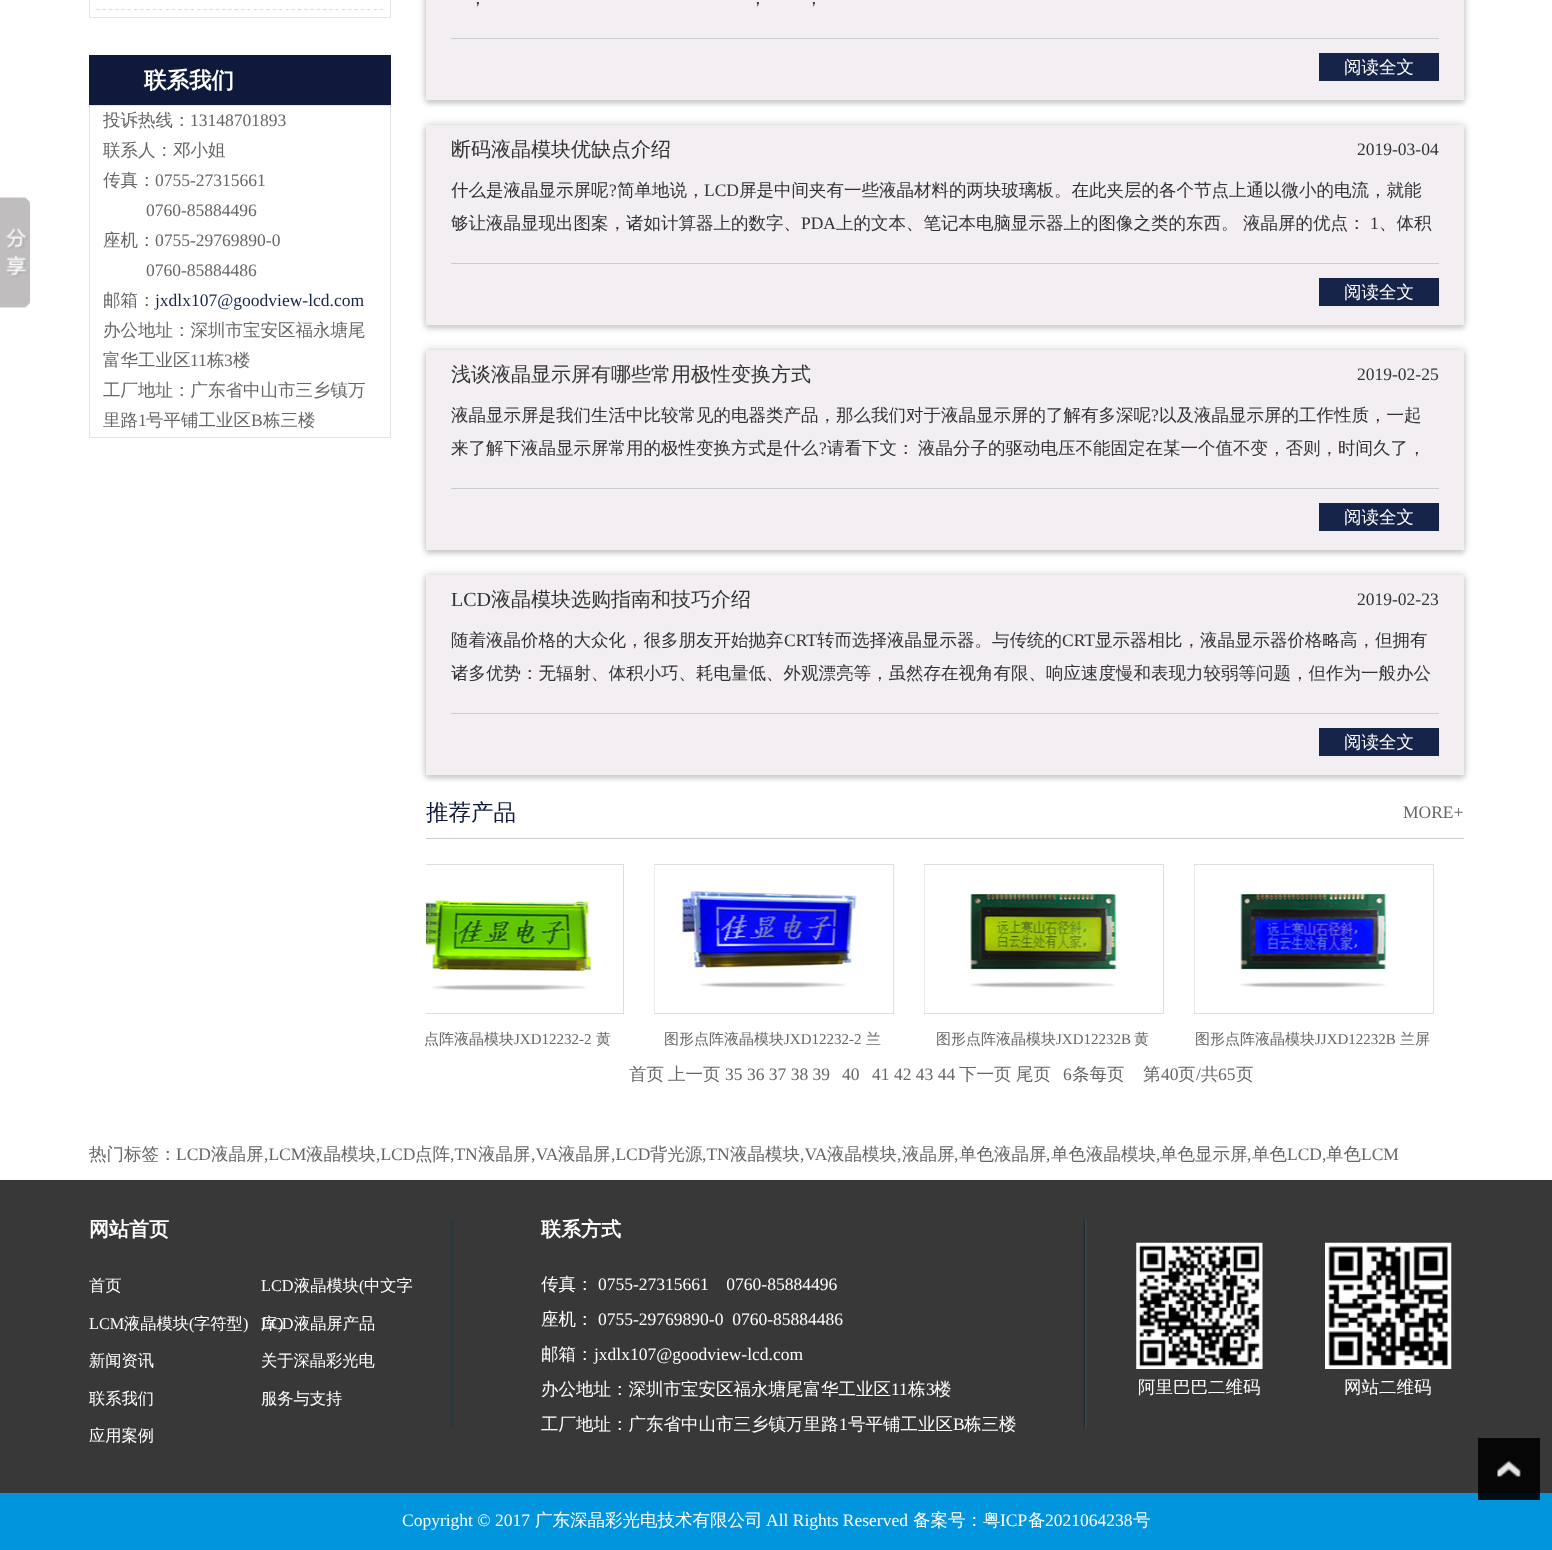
(async () => {
  const canvas = document.querySelector("canvas");
  canvas.width = 1552;
  canvas.height = 1550;
  const ctx = canvas.getContext("2d");
  ctx.miterLimit = 4;
  ctx.fontKerning = "normal";
  async function loadImage(src) {
    const img = new Image();
    img.src = src;
    await img.decode();
    return img;
  }
  let path;

  ctx.fillStyle = "#ffffff";
  ctx.fillRect(0, 0, 1552, 1550);
  ctx.drawImage(await loadImage("img/1.png"), 0, 197, 30, 111);
  ctx.strokeStyle = "#e2e2e2";
  ctx.strokeRect(89.5, -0.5, 301, 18);
  path = new Path2D("M96 9.5H384");
  ctx.strokeStyle = "#dedede";
  ctx.lineWidth = 1.2;
  ctx.setLineDash([3.75, 2.55]);
  ctx.stroke(path);
  ctx.fillStyle = "#0e193c";
  ctx.fillRect(89, 55, 302, 50);
  ctx.strokeStyle = "#e2e2e2";
  ctx.lineWidth = 1;
  ctx.setLineDash([]);
  ctx.strokeRect(89.5, 105.5, 301, 332);
  ctx.fillStyle = "#cccccc";
  ctx.filter = "blur(4px)";
  ctx.beginPath();
  ctx.rect(426, -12, 1038, 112);
  ctx.fill();
  ctx.filter = "none";
  ctx.filter = "blur(2.5px)";
  ctx.beginPath();
  ctx.rect(426, -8, 1038, 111);
  ctx.fill();
  ctx.filter = "none";
  for (const [x, y, w, h, color] of [
    [426, 0, 1038, 100, "#f2eef1"],
    [451, 38, 988, 1, "#cccccc"],
    [1319, 53, 120, 28, "#162449"],
  ]) {
    ctx.fillStyle = color;
    ctx.fillRect(x, y, w, h);
  }
  ctx.fillStyle = "#cccccc";
  ctx.filter = "blur(4px)";
  ctx.beginPath();
  ctx.rect(426, 125, 1038, 200);
  ctx.fill();
  ctx.filter = "none";
  ctx.filter = "blur(2.5px)";
  ctx.beginPath();
  ctx.rect(426, 128, 1038, 200);
  ctx.fill();
  ctx.filter = "none";
  for (const [x, y, w, h, color] of [
    [426, 125, 1038, 200, "#f2eef1"],
    [451, 263, 988, 1, "#cccccc"],
    [1319, 278, 120, 28, "#162449"],
  ]) {
    ctx.fillStyle = color;
    ctx.fillRect(x, y, w, h);
  }
  ctx.fillStyle = "#cccccc";
  ctx.filter = "blur(4px)";
  ctx.beginPath();
  ctx.rect(426, 350, 1038, 200);
  ctx.fill();
  ctx.filter = "none";
  ctx.filter = "blur(2.5px)";
  ctx.beginPath();
  ctx.rect(426, 353, 1038, 200);
  ctx.fill();
  ctx.filter = "none";
  for (const [x, y, w, h, color] of [
    [426, 350, 1038, 200, "#f2eef1"],
    [451, 488, 988, 1, "#cccccc"],
    [1319, 503, 120, 28, "#162449"],
  ]) {
    ctx.fillStyle = color;
    ctx.fillRect(x, y, w, h);
  }
  ctx.fillStyle = "#cccccc";
  ctx.filter = "blur(4px)";
  ctx.beginPath();
  ctx.rect(426, 575, 1038, 200);
  ctx.fill();
  ctx.filter = "none";
  ctx.filter = "blur(2.5px)";
  ctx.beginPath();
  ctx.rect(426, 578, 1038, 200);
  ctx.fill();
  ctx.filter = "none";
  for (const [x, y, w, h, color] of [
    [426, 575, 1038, 200, "#f2eef1"],
    [451, 713, 988, 1, "#cccccc"],
    [1319, 728, 120, 28, "#162449"],
    [426, 838, 1038, 1, "#cccccc"],
  ]) {
    ctx.fillStyle = color;
    ctx.fillRect(x, y, w, h);
  }
  ctx.save();
  ctx.beginPath();
  ctx.rect(426, 864, 1038, 200);
  ctx.clip();
  ctx.strokeStyle = "#dedede";
  ctx.strokeRect(384.5, 864.5, 239, 149);
  ctx.restore();
  ctx.drawImage(await loadImage("img/2.png"), 426, 900, 166, 91);
  ctx.strokeStyle = "#dedede";
  ctx.strokeRect(654.5, 864.5, 239, 149);
  ctx.drawImage(await loadImage("img/3.png"), 654, 865, 203, 148);
  ctx.strokeRect(924.5, 864.5, 239, 149);
  ctx.drawImage(await loadImage("img/4.png"), 924, 865, 193, 148);
  ctx.strokeRect(1194.5, 864.5, 239, 149);
  ctx.drawImage(await loadImage("img/5.png"), 1194, 865, 193, 148);
  for (const [x, y, w, h, color] of [
    [0, 1180, 1552, 313, "#383838"],
    [1478, 1438, 62, 55, "#060606"],
    [451, 1219, 3, 210, "#273a43"],
  ]) {
    ctx.fillStyle = color;
    ctx.fillRect(x, y, w, h);
  }
  ctx.drawImage(await loadImage("img/6.png"), 1083, 1219, 4, 210);
  ctx.drawImage(await loadImage("img/7.png"), 1136, 1242, 127, 127);
  ctx.drawImage(await loadImage("img/8.png"), 1325, 1242, 127, 127);
  ctx.fillStyle = "#0195dd";
  ctx.fillRect(0, 1493, 1552, 57);
  ctx.fillStyle = "#000f16";
  ctx.fillRect(1478, 1493, 62, 7);
  ctx.drawImage(await loadImage("img/9.png"), 1497, 1460, 24, 17);
  ctx.font = "bold 22.5px WenQuanYi Zen Hei";
  ctx.fillStyle = "#ffffff";
  ctx.fillText("联系我们", 144, 88);
  ctx.font = "500 17.5px WenQuanYi Zen Hei";
  ctx.fillStyle = "#666666";
  ctx.fillText("投诉热线：", 103, 126);
  ctx.font = "17.5px Liberation Serif";
  ctx.fillText("13148701893", 190, 126);
  ctx.font = "500 17.5px WenQuanYi Zen Hei";
  ctx.fillText("联系人：邓小姐", 103, 156);
  ctx.fillText("传真：", 103, 186);
  ctx.font = "17.5px Liberation Serif";
  ctx.fillText("0755-27315661", 155, 186);
  ctx.fillText("0760-85884496", 146, 216);
  ctx.font = "500 17.5px WenQuanYi Zen Hei";
  ctx.fillText("座机：", 103, 246);
  ctx.font = "17.5px Liberation Serif";
  ctx.fillText("0755-29769890-0", 155, 246);
  ctx.fillText("0760-85884486", 146, 276);
  ctx.font = "500 17.5px WenQuanYi Zen Hei";
  ctx.fillText("邮箱：", 103, 306);
  ctx.font = "17.5px Liberation Serif";
  ctx.fillStyle = "#162449";
  ctx.fillText("jxdlx107@goodview-lcd.com", 155, 306);
  ctx.font = "500 17.5px WenQuanYi Zen Hei";
  ctx.fillStyle = "#666666";
  ctx.fillText("办公地址：深圳市宝安区福永塘尾", 103, 336);
  ctx.fillText("富华工业区", 103, 366);
  ctx.font = "17.5px Liberation Serif";
  ctx.fillText("11", 190, 366);
  ctx.font = "500 17.5px WenQuanYi Zen Hei";
  ctx.fillText("栋", 207, 366);
  ctx.font = "17.5px Liberation Serif";
  ctx.fillText("3", 224, 366);
  ctx.font = "500 17.5px WenQuanYi Zen Hei";
  for (const [text, x, y] of [
    ["楼", 233, 366],
    ["工厂地址：广东省中山市三乡镇万", 103, 396],
    ["里路", 103, 426],
  ]) {
    ctx.fillText(text, x, y);
  }
  ctx.font = "17.5px Liberation Serif";
  ctx.fillText("1", 138, 426);
  ctx.font = "500 17.5px WenQuanYi Zen Hei";
  ctx.fillText("号平铺工业区", 146, 426);
  ctx.font = "17.5px Liberation Serif";
  ctx.fillText("B", 251, 426);
  ctx.font = "500 17.5px WenQuanYi Zen Hei";
  ctx.fillText("栋三楼", 263, 426);
  ctx.fillStyle = "#333333";
  for (const [text, x, y] of [
    ["，", 469, 4],
    ["，", 749, 4],
    ["，", 805, 4],
  ]) {
    ctx.fillText(text, x, y);
  }
  ctx.fillStyle = "#ffffff";
  ctx.fillText("阅读全文", 1344, 73);
  ctx.font = "500 20px WenQuanYi Zen Hei";
  ctx.fillStyle = "#333333";
  ctx.fillText("断码液晶模块优缺点介绍", 451, 156);
  ctx.font = "17.5px Liberation Serif";
  ctx.fillText("2019-03-04", 1357, 155);
  ctx.font = "500 17.5px WenQuanYi Zen Hei";
  ctx.fillText("什么是液晶显示屏呢", 451, 196);
  ctx.font = "17.5px Liberation Serif";
  ctx.fillText("?", 609, 196);
  ctx.font = "500 17.5px WenQuanYi Zen Hei";
  ctx.fillText("简单地说，", 617, 196);
  ctx.font = "17.5px Liberation Serif";
  ctx.fillText("LCD", 704, 196);
  ctx.font = "500 17.5px WenQuanYi Zen Hei";
  ctx.fillText("屏是中间夹有一些液晶材料的两块玻璃板。在此夹层的各个节点上通以微小的电流，就能", 739, 196);
  ctx.fillText("够让液晶显现出图案，诸如计算器上的数字、", 451, 229);
  ctx.font = "17.5px Liberation Serif";
  ctx.fillText("PDA", 801, 229);
  ctx.font = "500 17.5px WenQuanYi Zen Hei";
  ctx.fillText("上的文本、笔记本电脑显示器上的图像之类的东西。", 836, 229);
  ctx.fillText("液晶屏的优点：", 1243, 229);
  ctx.font = "17.5px Liberation Serif";
  ctx.fillText("1", 1370, 229);
  ctx.font = "500 17.5px WenQuanYi Zen Hei";
  ctx.fillText("、体积", 1379, 229);
  ctx.fillStyle = "#ffffff";
  ctx.fillText("阅读全文", 1344, 298);
  ctx.font = "500 20px WenQuanYi Zen Hei";
  ctx.fillStyle = "#333333";
  ctx.fillText("浅谈液晶显示屏有哪些常用极性变换方式", 451, 381);
  ctx.font = "17.5px Liberation Serif";
  ctx.fillText("2019-02-25", 1357, 380);
  ctx.font = "500 17.5px WenQuanYi Zen Hei";
  ctx.fillText("液晶显示屏是我们生活中比较常见的电器类产品，那么我们对于液晶显示屏的了解有多深呢", 451, 421);
  ctx.font = "17.5px Liberation Serif";
  ctx.fillText("?", 1151, 421);
  ctx.font = "500 17.5px WenQuanYi Zen Hei";
  ctx.fillText("以及液晶显示屏的工作性质，一起", 1159, 421);
  ctx.fillText("来了解下液晶显示屏常用的极性变换方式是什么", 451, 454);
  ctx.font = "17.5px Liberation Serif";
  ctx.fillText("?", 819, 454);
  ctx.font = "500 17.5px WenQuanYi Zen Hei";
  ctx.fillText("请看下文：", 827, 454);
  ctx.fillText("液晶分子的驱动电压不能固定在某一个值不变，否则，时间久了，", 918, 454);
  ctx.fillStyle = "#ffffff";
  ctx.fillText("阅读全文", 1344, 523);
  ctx.font = "20px Liberation Serif";
  ctx.fillStyle = "#333333";
  ctx.fillText("LCD", 451, 606);
  ctx.font = "500 20px WenQuanYi Zen Hei";
  ctx.fillText("液晶模块选购指南和技巧介绍", 491, 606);
  ctx.font = "17.5px Liberation Serif";
  ctx.fillText("2019-02-23", 1357, 605);
  ctx.font = "500 17.5px WenQuanYi Zen Hei";
  ctx.fillText("随着液晶价格的大众化，很多朋友开始抛弃", 451, 646);
  ctx.font = "17.5px Liberation Serif";
  ctx.fillText("CRT", 784, 646);
  ctx.font = "500 17.5px WenQuanYi Zen Hei";
  ctx.fillText("转而选择液晶显示器。与传统的", 817, 646);
  ctx.font = "17.5px Liberation Serif";
  ctx.fillText("CRT", 1062, 646);
  ctx.font = "500 17.5px WenQuanYi Zen Hei";
  ctx.fillText("显示器相比，液晶显示器价格略高，但拥有", 1095, 646);
  ctx.fillText("诸多优势：无辐射、体积小巧、耗电量低、外观漂亮等，虽然存在视角有限、响应速度慢和表现力较弱等问题，但作为一般办公", 451, 679);
  ctx.fillStyle = "#ffffff";
  ctx.fillText("阅读全文", 1344, 748);
  ctx.font = "500 22.5px WenQuanYi Zen Hei";
  ctx.fillStyle = "#0e193c";
  ctx.fillText("推荐产品", 426, 820);
  ctx.font = "17.5px Liberation Serif";
  ctx.fillStyle = "#666666";
  ctx.fillText("MORE+", 1403, 818);
  ctx.font = "500 15px WenQuanYi Zen Hei";
  ctx.fillText("点阵液晶模块", 424, 1044);
  ctx.font = "15px Liberation Serif";
  ctx.fillText("JXD12232-2", 514, 1044);
  ctx.font = "500 15px WenQuanYi Zen Hei";
  ctx.fillText("黄", 596, 1044);
  ctx.fillText("图形点阵液晶模块", 664, 1044);
  ctx.font = "15px Liberation Serif";
  ctx.fillText("JXD12232-2", 784, 1044);
  ctx.font = "500 15px WenQuanYi Zen Hei";
  ctx.fillText("兰", 866, 1044);
  ctx.fillText("图形点阵液晶模块", 936, 1044);
  ctx.font = "15px Liberation Serif";
  ctx.fillText("JXD12232B", 1056, 1044);
  ctx.font = "500 15px WenQuanYi Zen Hei";
  ctx.fillText("黄", 1134, 1044);
  ctx.fillText("图形点阵液晶模块", 1195, 1044);
  ctx.font = "15px Liberation Serif";
  ctx.fillText("JJXD12232B", 1315, 1044);
  ctx.font = "500 15px WenQuanYi Zen Hei";
  ctx.fillText("兰屏", 1400, 1044);
  ctx.font = "500 17.5px WenQuanYi Zen Hei";
  ctx.fillText("首页", 629, 1080);
  ctx.fillText("上一页", 668, 1080);
  ctx.font = "17.5px Liberation Serif";
  for (const [text, x, y] of [
    ["35 36 37 38 39", 725, 1080],
    ["40", 842, 1080],
    ["41 42 43 44", 872, 1080],
  ]) {
    ctx.fillText(text, x, y);
  }
  ctx.font = "500 17.5px WenQuanYi Zen Hei";
  ctx.fillText("下一页", 959, 1080);
  ctx.fillText("尾页", 1016, 1080);
  ctx.font = "17.5px Liberation Serif";
  ctx.fillText("6", 1063, 1080);
  ctx.font = "500 17.5px WenQuanYi Zen Hei";
  ctx.fillText("条每页", 1072, 1080);
  ctx.fillText("第", 1143, 1080);
  ctx.font = "17.5px Liberation Serif";
  ctx.fillText("40", 1161, 1080);
  ctx.font = "500 17.5px WenQuanYi Zen Hei";
  ctx.fillText("页", 1178, 1080);
  ctx.font = "17.5px Liberation Serif";
  ctx.fillText("/", 1196, 1080);
  ctx.font = "500 17.5px WenQuanYi Zen Hei";
  ctx.fillText("共", 1201, 1080);
  ctx.font = "17.5px Liberation Serif";
  ctx.fillText("65", 1218, 1080);
  ctx.font = "500 17.5px WenQuanYi Zen Hei";
  ctx.fillText("页", 1236, 1080);
  ctx.fillText("热门标签：", 89, 1160);
  ctx.font = "17.5px Liberation Serif";
  ctx.fillText("LCD", 176, 1160);
  ctx.font = "500 17.5px WenQuanYi Zen Hei";
  ctx.fillText("液晶屏", 211, 1160);
  ctx.font = "17.5px Liberation Serif";
  ctx.fillText(",LCM", 264, 1160);
  ctx.font = "500 17.5px WenQuanYi Zen Hei";
  ctx.fillText("液晶模块", 306, 1160);
  ctx.font = "17.5px Liberation Serif";
  ctx.fillText(",LCD", 376, 1160);
  ctx.font = "500 17.5px WenQuanYi Zen Hei";
  ctx.fillText("点阵", 415, 1160);
  ctx.font = "17.5px Liberation Serif";
  ctx.fillText(",TN", 450, 1160);
  ctx.font = "500 17.5px WenQuanYi Zen Hei";
  ctx.fillText("液晶屏", 478, 1160);
  ctx.font = "17.5px Liberation Serif";
  ctx.fillText(",VA", 531, 1160);
  ctx.font = "500 17.5px WenQuanYi Zen Hei";
  ctx.fillText("液晶屏", 558, 1160);
  ctx.font = "17.5px Liberation Serif";
  ctx.fillText(",LCD", 611, 1160);
  ctx.font = "500 17.5px WenQuanYi Zen Hei";
  ctx.fillText("背光源", 650, 1160);
  ctx.font = "17.5px Liberation Serif";
  ctx.fillText(",TN", 702, 1160);
  ctx.font = "500 17.5px WenQuanYi Zen Hei";
  ctx.fillText("液晶模块", 730, 1160);
  ctx.font = "17.5px Liberation Serif";
  ctx.fillText(",VA", 800, 1160);
  ctx.font = "500 17.5px WenQuanYi Zen Hei";
  ctx.fillText("液晶模块", 827, 1160);
  ctx.font = "17.5px Liberation Serif";
  ctx.fillText(",", 897, 1160);
  ctx.font = "500 17.5px WenQuanYi Zen Hei";
  ctx.fillText("液晶屏", 902, 1160);
  ctx.font = "17.5px Liberation Serif";
  ctx.fillText(",", 954, 1160);
  ctx.font = "500 17.5px WenQuanYi Zen Hei";
  ctx.fillText("单色液晶屏", 959, 1160);
  ctx.font = "17.5px Liberation Serif";
  ctx.fillText(",", 1046, 1160);
  ctx.font = "500 17.5px WenQuanYi Zen Hei";
  ctx.fillText("单色液晶模块", 1051, 1160);
  ctx.font = "17.5px Liberation Serif";
  ctx.fillText(",", 1156, 1160);
  ctx.font = "500 17.5px WenQuanYi Zen Hei";
  ctx.fillText("单色显示屏", 1160, 1160);
  ctx.font = "17.5px Liberation Serif";
  ctx.fillText(",", 1247, 1160);
  ctx.font = "500 17.5px WenQuanYi Zen Hei";
  ctx.fillText("单色", 1252, 1160);
  ctx.font = "17.5px Liberation Serif";
  ctx.fillText("LCD,", 1287, 1160);
  ctx.font = "500 17.5px WenQuanYi Zen Hei";
  ctx.fillText("单色", 1326, 1160);
  ctx.font = "17.5px Liberation Serif";
  ctx.fillText("LCM", 1361, 1160);
  ctx.font = "bold 20px WenQuanYi Zen Hei";
  ctx.fillStyle = "#ffffff";
  ctx.fillText("网站首页", 89, 1236);
  ctx.font = "500 16.25px WenQuanYi Zen Hei";
  ctx.fillText("首页", 89, 1291);
  ctx.font = "16.25px Liberation Serif";
  ctx.fillText("LCD", 261, 1291);
  ctx.font = "500 16.25px WenQuanYi Zen Hei";
  ctx.fillText("液晶模块", 294, 1291);
  ctx.font = "16.25px Liberation Serif";
  ctx.fillText("(", 359, 1291);
  ctx.font = "500 16.25px WenQuanYi Zen Hei";
  ctx.fillText("中文字", 364, 1291);
  ctx.fillText("库", 261, 1329);
  ctx.font = "16.25px Liberation Serif";
  ctx.fillText(")", 278, 1329);
  ctx.fillText("LCM", 89, 1329);
  ctx.font = "500 16.25px WenQuanYi Zen Hei";
  ctx.fillText("液晶模块", 124, 1329);
  ctx.font = "16.25px Liberation Serif";
  ctx.fillText("(", 189, 1329);
  ctx.font = "500 16.25px WenQuanYi Zen Hei";
  ctx.fillText("字符型", 194, 1329);
  ctx.font = "16.25px Liberation Serif";
  ctx.fillText(")", 243, 1329);
  ctx.fillText("LCD", 261, 1329);
  ctx.font = "500 16.25px WenQuanYi Zen Hei";
  for (const [text, x, y] of [
    ["液晶屏产品", 294, 1329],
    ["新闻资讯", 89, 1366],
    ["关于深晶彩光电", 261, 1366],
    ["联系我们", 89, 1404],
    ["服务与支持", 261, 1404],
    ["应用案例", 89, 1441],
  ]) {
    ctx.fillText(text, x, y);
  }
  ctx.font = "bold 20px WenQuanYi Zen Hei";
  ctx.fillText("联系方式", 541, 1236);
  ctx.font = "500 17.5px WenQuanYi Zen Hei";
  ctx.fillText("传真：", 541, 1290);
  ctx.font = "17.5px Liberation Serif";
  ctx.fillText("0755-27315661    0760-85884496", 598, 1290);
  ctx.font = "500 17.5px WenQuanYi Zen Hei";
  ctx.fillText("座机：", 541, 1325);
  ctx.font = "17.5px Liberation Serif";
  ctx.fillText("0755-29769890-0  0760-85884486", 598, 1325);
  ctx.font = "500 17.5px WenQuanYi Zen Hei";
  ctx.fillText("邮箱：", 541, 1360);
  ctx.font = "17.5px Liberation Serif";
  ctx.fillText("jxdlx107@goodview-lcd.com", 594, 1360);
  ctx.font = "500 17.5px WenQuanYi Zen Hei";
  ctx.fillText("办公地址：深圳市宝安区福永塘尾富华工业区", 541, 1395);
  ctx.font = "17.5px Liberation Serif";
  ctx.fillText("11", 891, 1395);
  ctx.font = "500 17.5px WenQuanYi Zen Hei";
  ctx.fillText("栋", 908, 1395);
  ctx.font = "17.5px Liberation Serif";
  ctx.fillText("3", 926, 1395);
  ctx.font = "500 17.5px WenQuanYi Zen Hei";
  ctx.fillText("楼", 934, 1395);
  ctx.fillText("工厂地址：广东省中山市三乡镇万里路", 541, 1430);
  ctx.font = "17.5px Liberation Serif";
  ctx.fillText("1", 839, 1430);
  ctx.font = "500 17.5px WenQuanYi Zen Hei";
  ctx.fillText("号平铺工业区", 848, 1430);
  ctx.font = "17.5px Liberation Serif";
  ctx.fillText("B", 953, 1430);
  ctx.font = "500 17.5px WenQuanYi Zen Hei";
  for (const [text, x, y] of [
    ["栋三楼", 964, 1430],
    ["阿里巴巴二维码", 1138, 1393],
    ["网站二维码", 1344, 1393],
  ]) {
    ctx.fillText(text, x, y);
  }
  ctx.font = "17.5px Liberation Serif";
  ctx.fillText("Copyright © 2017", 402, 1526);
  ctx.font = "500 17.5px WenQuanYi Zen Hei";
  ctx.fillText("广东深晶彩光电技术有限公司", 535, 1526);
  ctx.font = "17.5px Liberation Serif";
  ctx.fillText("All Rights Reserved", 766, 1526);
  ctx.font = "500 17.5px WenQuanYi Zen Hei";
  ctx.fillText("备案号：粤", 913, 1526);
  ctx.font = "17.5px Liberation Serif";
  ctx.fillText("ICP", 1000, 1526);
  ctx.font = "500 17.5px WenQuanYi Zen Hei";
  ctx.fillText("备", 1028, 1526);
  ctx.font = "17.5px Liberation Serif";
  ctx.fillText("2021064238", 1045, 1526);
  ctx.font = "500 17.5px WenQuanYi Zen Hei";
  ctx.fillText("号", 1133, 1526);
})();
